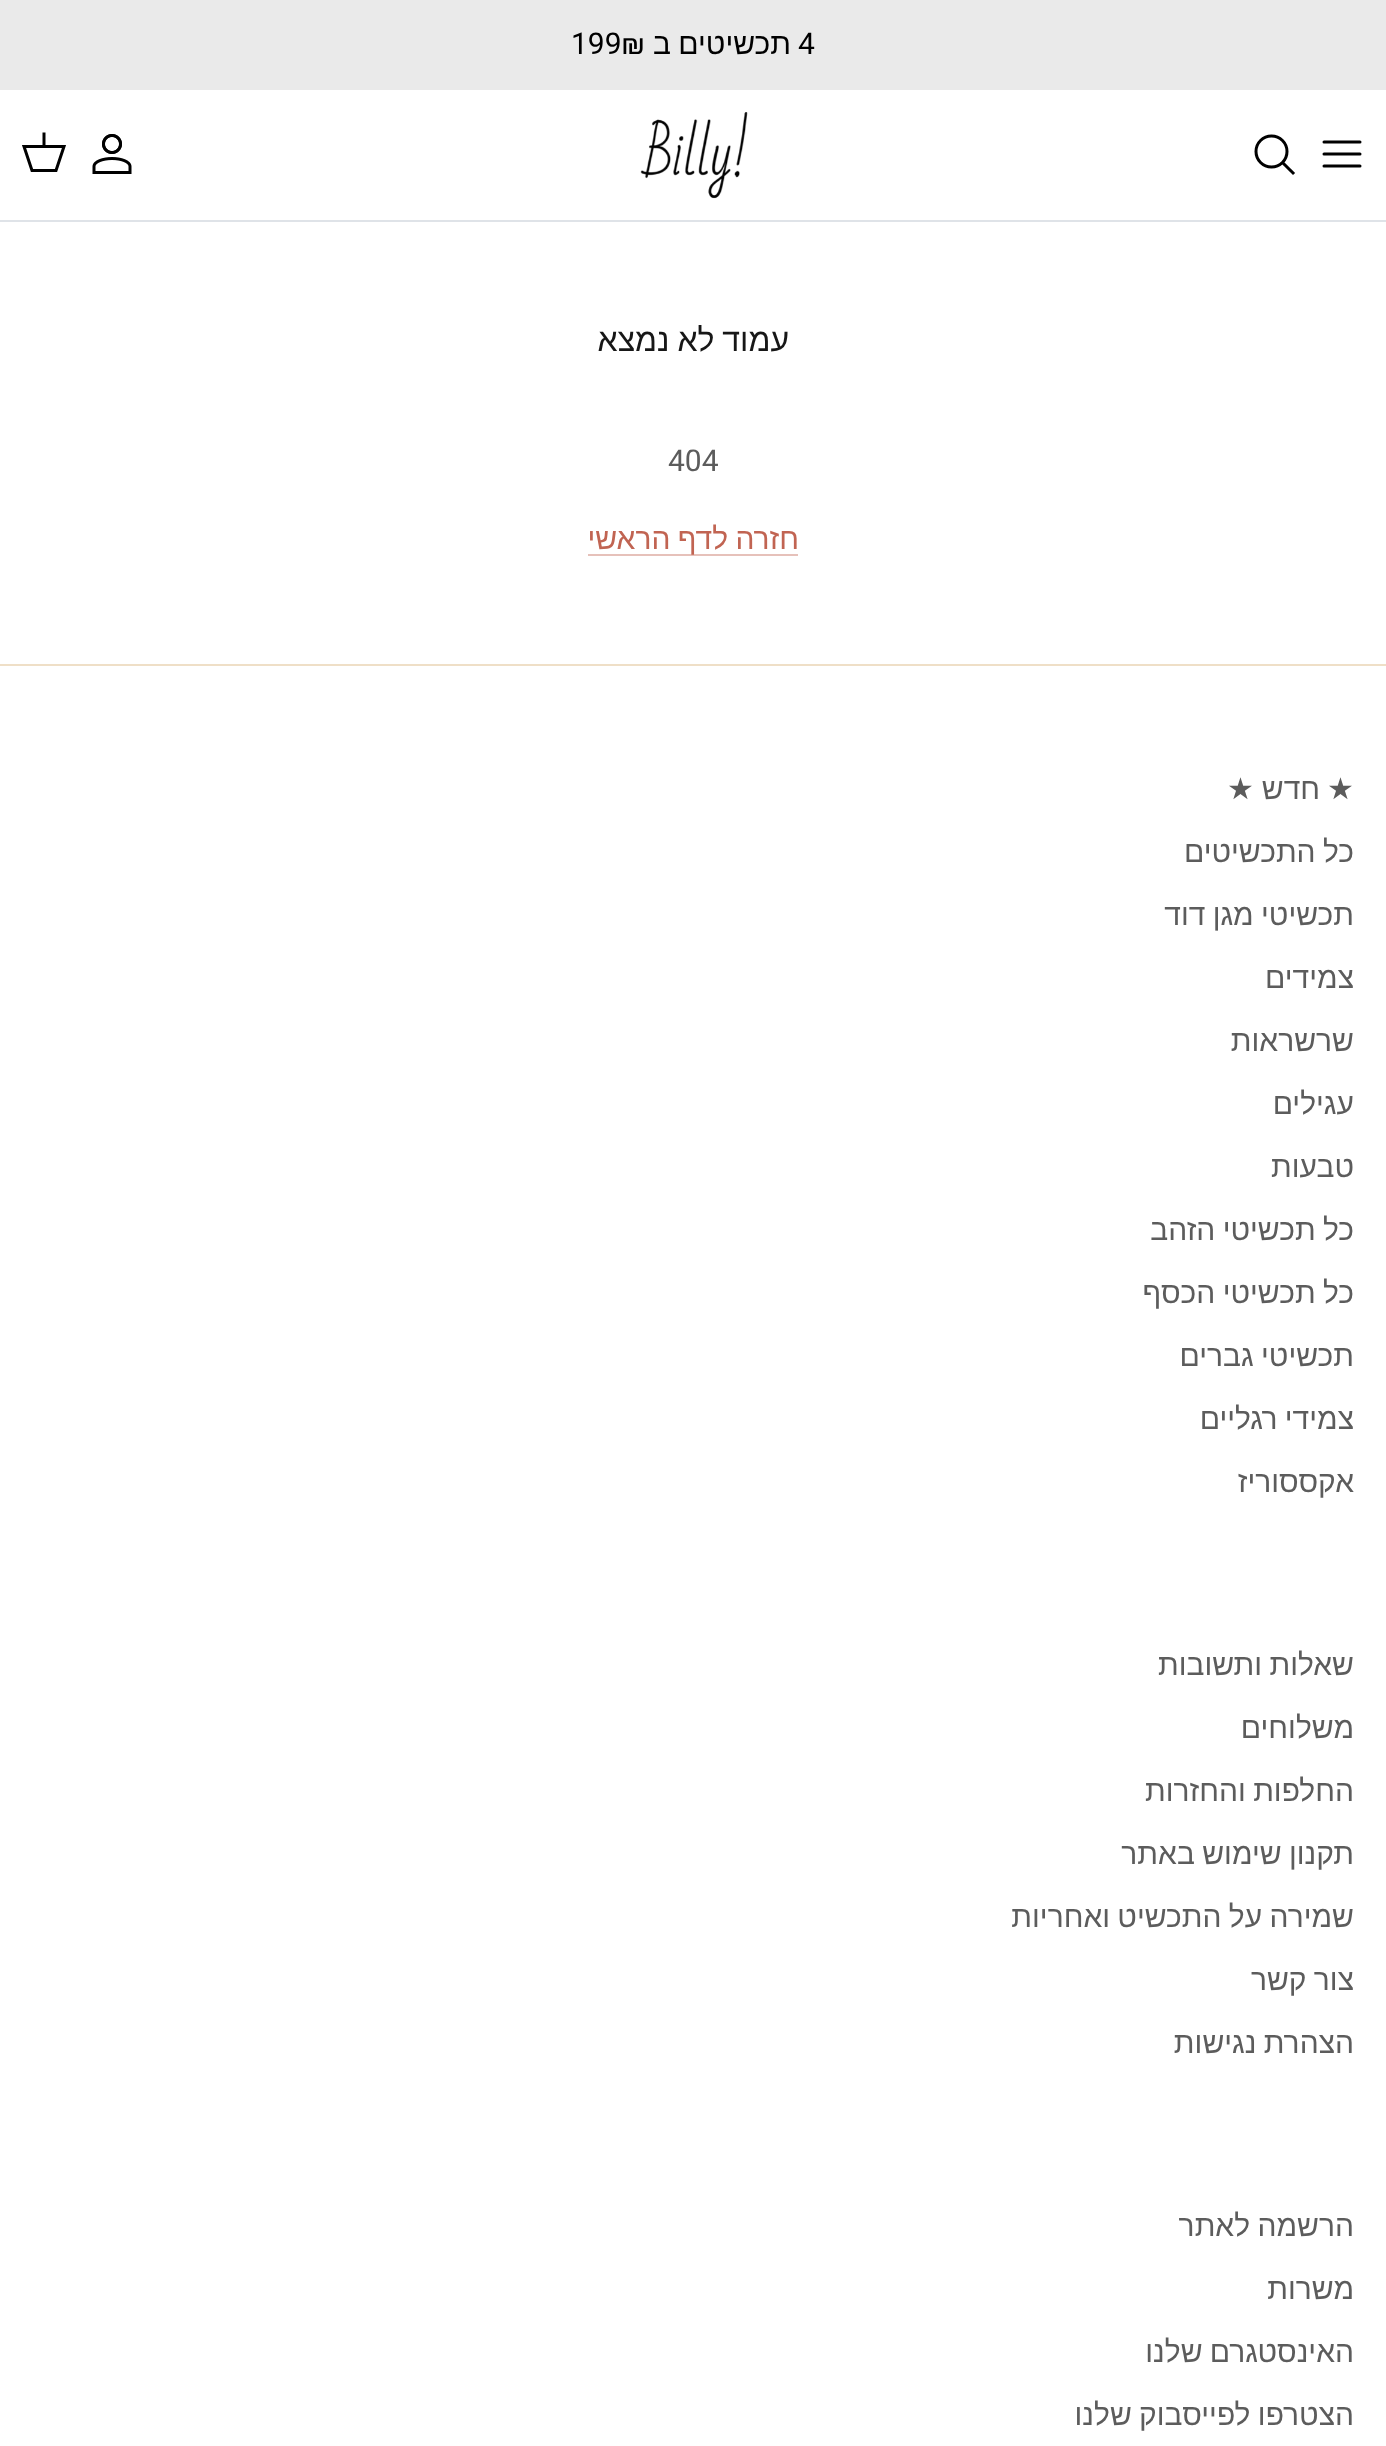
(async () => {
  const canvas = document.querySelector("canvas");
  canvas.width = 1386;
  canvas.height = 2446;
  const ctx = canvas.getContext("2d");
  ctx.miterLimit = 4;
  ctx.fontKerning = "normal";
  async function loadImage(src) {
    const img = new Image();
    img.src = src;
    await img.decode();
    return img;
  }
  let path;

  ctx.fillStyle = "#ffffff";
  ctx.fillRect(0, 0, 1386, 2446);
  ctx.fillStyle = "#eaeaea";
  ctx.fillRect(0, 0, 1386, 90);
  ctx.fillStyle = "#dfe3e8";
  ctx.fillRect(0, 220, 1386, 2);
  path = new Path2D("M1324 154H1360M1324 142H1360M1324 166H1360");
  ctx.strokeStyle = "#000000";
  ctx.lineWidth = 3;
  ctx.lineCap = "round";
  ctx.lineJoin = "round";
  ctx.stroke(path);
  ctx.beginPath();
  ctx.arc(1271.5, 151.5, 15.5, 0, Math.PI * 2);
  ctx.stroke();
  path = new Path2D("M1284 164L1293 173");
  ctx.lineCap = "square";
  ctx.lineJoin = "miter";
  ctx.stroke(path);
  ctx.drawImage(await loadImage("img/1.png"), 640, 112, 108, 87);
  ctx.drawImage(await loadImage("img/2.png"), 92, 134, 40, 40);
  path = new Path2D("M24 146.5H64L56 170.5H32Z");
  ctx.lineCap = "butt";
  ctx.stroke(path);
  path = new Path2D("M44 146V134");
  ctx.lineCap = "square";
  ctx.stroke(path);
  ctx.fillStyle = "#e6c1ba";
  ctx.fillRect(588, 554, 210, 2);
  ctx.fillStyle = "#efdfc7";
  ctx.fillRect(0, 664, 1386, 2);
  ctx.font = "30px Roboto";
  ctx.fillStyle = "#000000";
  ctx.fillText("4", 798, 54);
  ctx.wordSpacing = "-1px";
  ctx.direction = "rtl";
  ctx.font = "30px Liberation Sans";
  ctx.fillText("תכשיטים ב", 791, 54);
  ctx.wordSpacing = "0px";
  ctx.direction = "ltr";
  ctx.font = "30px Roboto";
  ctx.fillText("199₪", 571, 54);
  ctx.wordSpacing = "-1px";
  ctx.direction = "rtl";
  ctx.font = "32px Liberation Sans";
  ctx.fillStyle = "#171717";
  ctx.fillText("עמוד לא נמצא", 789, 351);
  ctx.wordSpacing = "0px";
  ctx.direction = "ltr";
  ctx.font = "30px Roboto";
  ctx.fillStyle = "#5c5c5c";
  ctx.fillText("404", 668, 471);
  ctx.wordSpacing = "-1px";
  ctx.direction = "rtl";
  ctx.font = "30px Liberation Sans";
  ctx.fillStyle = "#c16452";
  ctx.fillText("חזרה לדף הראשי", 799, 549);
  ctx.wordSpacing = "0px";
  ctx.font = "30px DejaVu Sans";
  ctx.fillStyle = "#5c5c5c";
  ctx.fillText("★", 1354, 799);
  ctx.font = "30px Liberation Sans";
  ctx.fillText("חדש", 1320, 799);
  ctx.font = "30px DejaVu Sans";
  ctx.fillText("★", 1254, 799);
  ctx.wordSpacing = "-1px";
  ctx.font = "30px Liberation Sans";
  ctx.fillText("כל התכשיטים", 1354, 862);
  ctx.fillText("תכשיטי מגן דוד", 1354, 925);
  ctx.wordSpacing = "0px";
  for (const [text, x, y] of [
    ["צמידים", 1354, 988],
    ["שרשראות", 1354, 1051],
    ["עגילים", 1354, 1114],
    ["טבעות", 1354, 1177],
  ]) {
    ctx.fillText(text, x, y);
  }
  ctx.wordSpacing = "-1px";
  for (const [text, x, y] of [
    ["כל תכשיטי הזהב", 1354, 1240],
    ["כל תכשיטי הכסף", 1354, 1303],
    ["תכשיטי גברים", 1354, 1366],
    ["צמידי רגליים", 1354, 1429],
  ]) {
    ctx.fillText(text, x, y);
  }
  ctx.wordSpacing = "0px";
  ctx.fillText("אקססוריז", 1354, 1492);
  ctx.wordSpacing = "-1px";
  ctx.fillText("שאלות ותשובות", 1354, 1675);
  ctx.wordSpacing = "0px";
  ctx.fillText("משלוחים", 1354, 1738);
  ctx.wordSpacing = "-1px";
  for (const [text, x, y] of [
    ["החלפות והחזרות", 1354, 1801],
    ["תקנון שימוש באתר", 1354, 1864],
    ["שמירה על התכשיט ואחריות", 1354, 1927],
    ["צור קשר", 1354, 1990],
    ["הצהרת נגישות", 1354, 2053],
    ["הרשמה לאתר", 1354, 2236],
  ]) {
    ctx.fillText(text, x, y);
  }
  ctx.wordSpacing = "0px";
  ctx.fillText("משרות", 1354, 2299);
  ctx.wordSpacing = "-1px";
  ctx.fillText("האינסטגרם שלנו", 1354, 2362);
  ctx.fillText("הצטרפו לפייסבוק שלנו", 1354, 2425);
})();
